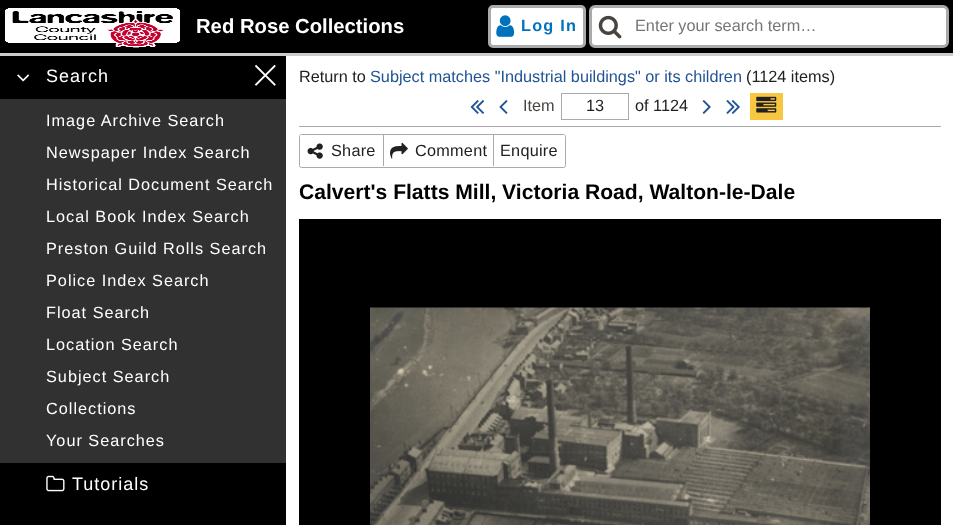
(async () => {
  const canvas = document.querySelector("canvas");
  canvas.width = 953;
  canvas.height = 525;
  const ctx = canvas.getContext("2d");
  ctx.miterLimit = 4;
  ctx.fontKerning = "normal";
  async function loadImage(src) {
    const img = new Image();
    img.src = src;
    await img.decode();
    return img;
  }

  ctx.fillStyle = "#ffffff";
  ctx.fillRect(0, 0, 953, 525);
  ctx.fillStyle = "#000000";
  ctx.fillRect(0, 0, 953, 53);
  ctx.fillStyle = "#cccccc";
  ctx.fillRect(0, 53, 953, 3);
  ctx.drawImage(await loadImage("img/1.png"), 5, 8, 175, 40);
  ctx.fillStyle = "#ffffff";
  ctx.beginPath();
  ctx.roundRect(489.5, 6.5, 95, 40, 3.5);
  ctx.fill();
  ctx.strokeStyle = "#aaaaaa";
  ctx.lineWidth = 3;
  ctx.stroke();
  ctx.drawImage(await loadImage("img/2.png"), 496, 15, 19, 22);
  ctx.beginPath();
  ctx.roundRect(590.5, 6.5, 357, 40, 4.5);
  ctx.fill();
  ctx.stroke();
  ctx.drawImage(await loadImage("img/3.png"), 598, 15, 24, 24);
  ctx.fillStyle = "#000000";
  ctx.fillRect(0, 56, 286, 43);
  ctx.drawImage(await loadImage("img/4.png"), 254, 64, 22, 22);
  ctx.fillStyle = "#313131";
  ctx.fillRect(0, 99, 286, 364);
  ctx.drawImage(await loadImage("img/5.png"), 17, 74, 13, 8);
  ctx.fillStyle = "#000000";
  ctx.fillRect(0, 463, 286, 62);
  ctx.drawImage(await loadImage("img/6.png"), 46, 475, 19, 17);
  ctx.fillStyle = "#aaaaaa";
  ctx.fillRect(299, 126, 642, 1);
  ctx.drawImage(await loadImage("img/7.png"), 470, 100, 15, 14);
  ctx.drawImage(await loadImage("img/8.png"), 499, 100, 9, 14);
  ctx.lineWidth = 1;
  ctx.strokeRect(561.5, 93.5, 67, 26);
  ctx.drawImage(await loadImage("img/9.png"), 702, 100, 9, 14);
  ctx.drawImage(await loadImage("img/10.png"), 726, 100, 14, 14);
  ctx.fillStyle = "#f9c642";
  ctx.fillRect(750, 93, 33, 27);
  ctx.drawImage(await loadImage("img/11.png"), 756, 96, 21, 17);
  ctx.beginPath();
  ctx.roundRect(299.5, 134.5, 266, 33, 2);
  ctx.stroke();
  ctx.fillStyle = "#ffffff";
  ctx.fillRect(300, 135, 1, 1);
  ctx.fillStyle = "#aaaaaa";
  ctx.fillRect(383, 135, 1, 31);
  ctx.drawImage(await loadImage("img/12.png"), 307, 143, 16, 16);
  ctx.fillRect(493, 135, 1, 31);
  ctx.drawImage(await loadImage("img/13.png"), 390, 142, 18, 17);
  ctx.fillStyle = "#ffffff";
  ctx.fillRect(564, 135, 1, 1);
  ctx.fillStyle = "#000000";
  ctx.fillRect(299, 219, 642, 306);
  ctx.drawImage(await loadImage("img/14.png"), 370, 307, 500, 218);
  ctx.font = "bold 20.25px Liberation Sans";
  ctx.fillStyle = "#ffffff";
  ctx.fillText("Red Rose Collections", 196, 33);
  ctx.letterSpacing = "1.25px";
  ctx.font = "bold 16.25px Liberation Sans";
  ctx.fillStyle = "#0071bc";
  ctx.fillText("Log In", 521, 31);
  ctx.letterSpacing = "0px";
  ctx.font = "16.25px Liberation Sans";
  ctx.fillStyle = "#757575";
  ctx.fillText("Enter your search term…", 635, 31);
  ctx.letterSpacing = "1px";
  ctx.font = "18px Liberation Sans";
  ctx.fillStyle = "#ffffff";
  ctx.fillText("Search", 46, 82);
  ctx.font = "16.25px Liberation Sans";
  for (const [text, x, y] of [
    ["Image Archive Search", 46, 126],
    ["Newspaper Index Search", 46, 158],
    ["Historical Document Search", 46, 190],
    ["Local Book Index Search", 46, 222],
    ["Preston Guild Rolls Search", 46, 254],
    ["Police Index Search", 46, 286],
    ["Float Search", 46, 318],
    ["Location Search", 46, 350],
    ["Subject Search", 46, 382],
    ["Collections", 46, 414],
    ["Your Searches", 46, 446],
  ]) {
    ctx.fillText(text, x, y);
  }
  ctx.font = "18px Liberation Sans";
  ctx.fillText("Tutorials", 72, 490);
  ctx.letterSpacing = "0px";
  ctx.font = "16.25px Liberation Sans";
  ctx.fillStyle = "#212121";
  ctx.fillText("Return to", 299, 82);
  ctx.fillStyle = "#205493";
  ctx.fillText("Subject matches \"Industrial buildings\" or its children", 370, 82);
  ctx.fillStyle = "#212121";
  ctx.fillText("(1124 items)", 746, 82);
  ctx.fillStyle = "#494440";
  ctx.fillText("Item", 523, 111);
  ctx.fillStyle = "#212121";
  ctx.fillText("13", 586, 111);
  ctx.fillText("of 1124", 635, 111);
  ctx.letterSpacing = "0.25px";
  for (const [text, x, y] of [
    ["Share", 331, 156],
    ["Comment", 415, 156],
    ["Enquire", 500, 156],
  ]) {
    ctx.fillText(text, x, y);
  }
  ctx.letterSpacing = "0px";
  ctx.font = "bold 21.1px Liberation Sans";
  ctx.fillStyle = "#000000";
  ctx.fillText("Calvert's Flatts Mill, Victoria Road, Walton-le-Dale", 299, 199);
})();
